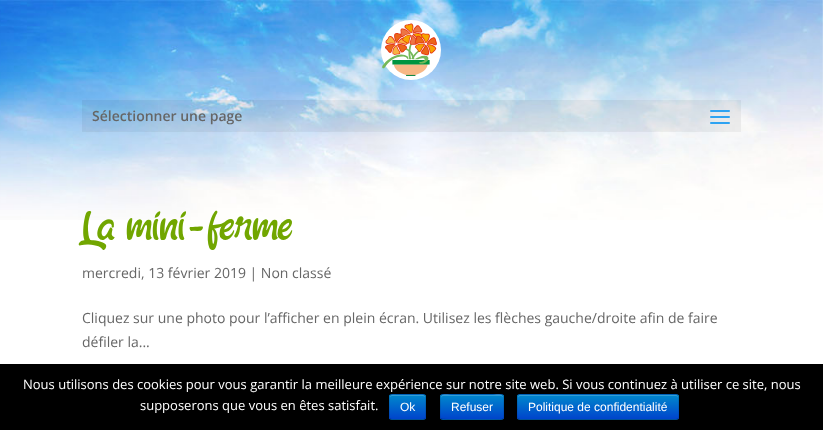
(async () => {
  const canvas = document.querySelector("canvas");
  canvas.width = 823;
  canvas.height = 430;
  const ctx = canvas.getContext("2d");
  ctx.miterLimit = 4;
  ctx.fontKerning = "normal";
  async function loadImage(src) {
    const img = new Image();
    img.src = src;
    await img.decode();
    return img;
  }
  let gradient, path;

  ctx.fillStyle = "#ffffff";
  ctx.fillRect(0, 0, 823, 430);
  ctx.drawImage(await loadImage("img/1.png"), 0, 0, 823, 220);
  ctx.drawImage(await loadImage("img/2.png"), 381, 20, 60, 60);
  ctx.fillStyle = "rgba(0, 0, 0, 0.05)";
  ctx.fillRect(82, 100, 659, 32);
  ctx.drawImage(await loadImage("img/3.png"), 710, 110, 20, 14);
  ctx.fillStyle = "#000000";
  ctx.fillRect(0, 364, 823, 66);
  ctx.fillStyle = "#006dcc";
  ctx.beginPath();
  ctx.roundRect(389, 394, 37, 26, 3);
  ctx.fill();
  ctx.save();
  ctx.beginPath();
  ctx.roundRect(389, 394, 37, 26, 3);
  ctx.clip();
  gradient = ctx.createLinearGradient(408, 395, 408, 419);
  gradient.addColorStop(0, "#0088cc");
  gradient.addColorStop(1, "#0044cc");
  ctx.fillStyle = gradient;
  ctx.fillRect(389, 395, 37, 24);
  ctx.restore();
  ctx.fillStyle = "rgba(255, 255, 255, 0.2)";
  path = new Path2D("M392 396H423C424 396 425 397 425 398C425 393.5 421.5 395 418 395H397C393.5 395 390 393.5 390 398C390 397 391 396 392 396Z");
  ctx.fill(path);
  path = new Path2D("M425 419C424.5 419 423.5 419.5 423 419.5H392C391.5 419.5 390.5 419 390 419");
  ctx.strokeStyle = "rgba(0, 0, 0, 0.25)";
  ctx.stroke(path);
  path = new Path2D("M390 419C390 418.5 389.5 417.5 389.5 417V397C389.5 396.5 390 395.5 390 395C390.5 395 391.5 394.5 392 394.5H423C423.5 394.5 424.5 395 425 395C425 395.5 425.5 396.5 425.5 397V417C425.5 417.5 425 418.5 425 419");
  ctx.strokeStyle = "rgba(0, 0, 0, 0.1)";
  ctx.stroke(path);
  ctx.fillStyle = "#006dcc";
  ctx.beginPath();
  ctx.roundRect(440, 394, 64, 26, 3);
  ctx.fill();
  ctx.save();
  ctx.beginPath();
  ctx.roundRect(440, 394, 64, 26, 3);
  ctx.clip();
  gradient = ctx.createLinearGradient(472, 395, 472, 419);
  gradient.addColorStop(0, "#0088cc");
  gradient.addColorStop(1, "#0044cc");
  ctx.fillStyle = gradient;
  ctx.fillRect(440, 395, 64, 24);
  ctx.restore();
  ctx.fillStyle = "rgba(255, 255, 255, 0.2)";
  path = new Path2D("M443 396H501C502 396 503 397 503 398C503 392 495 395 491 395H453C449 395 441 392 441 398C441 397 442 396 443 396Z");
  ctx.fill(path);
  path = new Path2D("M503 419L501 419.5C496 420 442.5 420 441.5 419H441");
  ctx.strokeStyle = "rgba(0, 0, 0, 0.25)";
  ctx.stroke(path);
  path = new Path2D("M441 419C439.5 417 440.5 409.5 440.5 407C440.5 392.5 438 394.5 452.5 394.5H491.5C506 394.5 503.5 392.5 503.5 407C503.5 409.5 504.5 417 503 419");
  ctx.strokeStyle = "rgba(0, 0, 0, 0.1)";
  ctx.stroke(path);
  ctx.fillStyle = "#006dcc";
  ctx.beginPath();
  ctx.roundRect(517, 394, 162, 26, 3);
  ctx.fill();
  ctx.save();
  ctx.beginPath();
  ctx.roundRect(517, 394, 162, 26, 3);
  ctx.clip();
  gradient = ctx.createLinearGradient(598, 395, 598, 419);
  gradient.addColorStop(0, "#0088cc");
  gradient.addColorStop(1, "#0044cc");
  ctx.fillStyle = gradient;
  ctx.fillRect(517, 395, 162, 24);
  ctx.restore();
  ctx.fillStyle = "rgba(255, 255, 255, 0.2)";
  path = new Path2D("M520 396H676C677 396 678 397 678 398C678 397 678 395 676 395H520C518 395 518 397 518 398C518 397 519 396 520 396Z");
  ctx.fill(path);
  path = new Path2D("M678 419L676 419.5H520L518 419");
  ctx.strokeStyle = "rgba(0, 0, 0, 0.25)";
  ctx.stroke(path);
  path = new Path2D("M518 419C516.5 417 517.5 409.5 517.5 407V400.5C517.5 398.5 517 394.5 520 394.5H676C679 394.5 678.5 398.5 678.5 400.5V407C678.5 409.5 679.5 417 678 419");
  ctx.strokeStyle = "rgba(0, 0, 0, 0.1)";
  ctx.stroke(path);
  ctx.font = "600 14px Open Sans";
  ctx.fillStyle = "#666666";
  ctx.fillText("Sélectionner une page", 92, 121);
  ctx.font = "42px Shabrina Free";
  ctx.fillStyle = "#71a600";
  ctx.fillText("La mini-ferme", 82, 240);
  ctx.font = "14px Open Sans";
  ctx.fillStyle = "#666666";
  for (const [text, x, y] of [
    ["mercredi, 13 février 2019 | Non classé", 82, 278],
    ["Cliquez sur une photo pour l’afficher en plein écran. Utilisez les flèches gauche/droite afin de faire", 82, 323],
    ["défiler la...", 82, 347],
  ]) {
    ctx.fillText(text, x, y);
  }
  ctx.font = "13px Open Sans";
  ctx.fillStyle = "#ffffff";
  ctx.fillText("Nous utilisons des cookies pour vous garantir la meilleure expérience sur notre site web. Si vous continuez à utiliser ce site, nous", 23, 389);
  ctx.fillText("supposerons que vous en êtes satisfait.", 140, 410);
  ctx.font = "12px Liberation Sans";
  for (const [text, x, y] of [
    ["Ok", 400, 411],
    ["Refuser", 451, 411],
    ["Politique de confidentialité", 528, 411],
  ]) {
    ctx.fillText(text, x, y);
  }
})();
